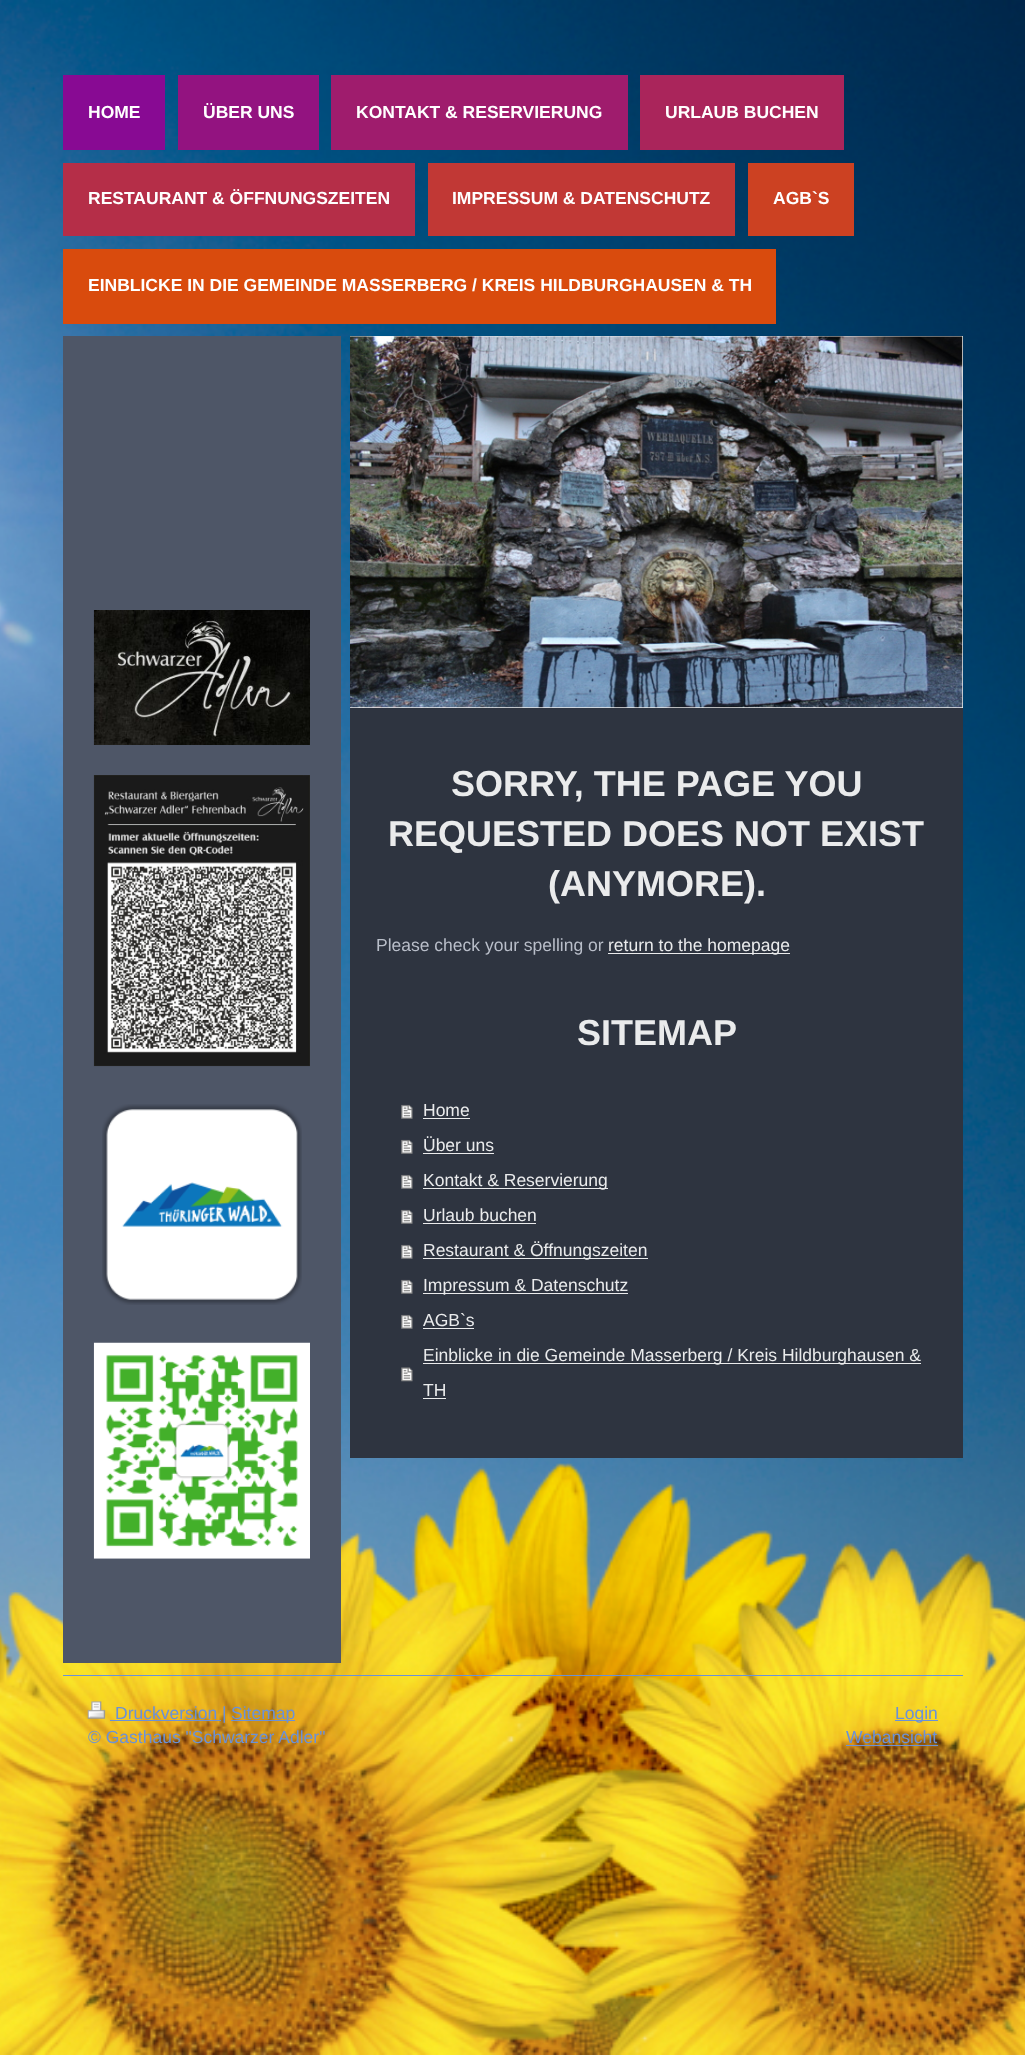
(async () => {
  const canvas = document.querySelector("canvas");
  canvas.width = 1025;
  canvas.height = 2055;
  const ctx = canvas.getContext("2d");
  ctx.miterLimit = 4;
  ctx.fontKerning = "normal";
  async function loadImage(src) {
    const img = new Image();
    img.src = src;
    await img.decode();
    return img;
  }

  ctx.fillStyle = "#ffffff";
  ctx.fillRect(0, 0, 1025, 2055);
  ctx.drawImage(await loadImage("img/1.png"), 0, 0, 1025, 2055);
  for (const [x, y, w, h, color] of [
    [63, 75, 102, 75, "#880a93"],
    [178, 75, 141, 75, "#931380"],
    [331, 75, 297, 75, "#9f1c6d"],
    [640, 75, 204, 75, "#aa255b"],
    [63, 163, 352, 73, "#b52e48"],
    [428, 163, 307, 73, "#c13835"],
    [748, 163, 106, 73, "#cc4122"],
    [63, 249, 713, 75, "#d94b0d"],
    [63, 336, 278, 1327, "#4e5667"],
  ]) {
    ctx.fillStyle = color;
    ctx.fillRect(x, y, w, h);
  }
  ctx.drawImage(await loadImage("img/2.png"), 93, 610, 217, 135);
  ctx.drawImage(await loadImage("img/3.png"), 93, 775, 217, 292);
  ctx.drawImage(await loadImage("img/4.png"), 102, 1104, 200, 201);
  ctx.drawImage(await loadImage("img/5.png"), 93, 1342, 217, 217);
  ctx.fillStyle = "#2e3440";
  ctx.fillRect(350, 708, 613, 750);
  ctx.fillStyle = "#eeeeee";
  ctx.fillRect(350, 336, 613, 372);
  ctx.drawImage(await loadImage("img/6.png"), 350, 336, 613, 372);
  ctx.fillStyle = "#eaebec";
  ctx.fillRect(608, 953, 182, 1);
  ctx.drawImage(await loadImage("img/7.png"), 401, 1104, 12, 15);
  ctx.fillRect(423, 1118, 47, 1);
  ctx.drawImage(await loadImage("img/7.png"), 401, 1139, 12, 15);
  ctx.fillRect(423, 1153, 71, 1);
  ctx.drawImage(await loadImage("img/8.png"), 401, 1174, 12, 15);
  ctx.fillRect(423, 1188, 185, 1);
  ctx.drawImage(await loadImage("img/7.png"), 401, 1209, 12, 15);
  ctx.fillRect(423, 1223, 113, 1);
  ctx.drawImage(await loadImage("img/7.png"), 401, 1244, 12, 15);
  ctx.fillRect(423, 1258, 225, 1);
  ctx.drawImage(await loadImage("img/7.png"), 401, 1279, 12, 15);
  ctx.fillRect(423, 1293, 205, 1);
  ctx.drawImage(await loadImage("img/7.png"), 401, 1314, 12, 15);
  ctx.fillRect(423, 1328, 51, 1);
  ctx.drawImage(await loadImage("img/9.png"), 401, 1367, 12, 15);
  for (const [x, y, w, h, color] of [
    [423, 1363, 498, 1, "#eaebec"],
    [423, 1398, 23, 1, "#eaebec"],
    [63, 1675, 900, 1, "#6a91d9"],
  ]) {
    ctx.fillStyle = color;
    ctx.fillRect(x, y, w, h);
  }
  ctx.drawImage(await loadImage("img/10.png"), 87, 1701, 19, 18);
  for (const [x, y, w, h, color] of [
    [110, 1720, 111, 1, "#6a91d9"],
    [231, 1720, 64, 1, "#6a91d9"],
    [895, 1720, 43, 1, "#6a91d9"],
    [846, 1745, 92, 1, "#6a91d9"],
  ]) {
    ctx.fillStyle = color;
    ctx.fillRect(x, y, w, h);
  }
  ctx.font = "bold 17.5px Liberation Sans";
  ctx.fillStyle = "#ffffff";
  for (const [text, x, y] of [
    ["HOME", 88, 118],
    ["ÜBER UNS", 203, 118],
    ["KONTAKT & RESERVIERUNG", 356, 118],
    ["URLAUB BUCHEN", 665, 118],
    ["RESTAURANT & ÖFFNUNGSZEITEN", 88, 204],
    ["IMPRESSUM & DATENSCHUTZ", 452, 204],
    ["AGB`S", 773, 204],
    ["EINBLICKE IN DIE GEMEINDE MASSERBERG / KREIS HILDBURGHAUSEN & TH", 88, 291],
  ]) {
    ctx.fillText(text, x, y);
  }
  ctx.font = "bold 36px Liberation Sans";
  ctx.fillStyle = "#eaebec";
  for (const [text, x, y] of [
    ["SORRY, THE PAGE YOU", 451, 796],
    ["REQUESTED DOES NOT EXIST", 388, 846],
    ["(ANYMORE).", 548, 896],
  ]) {
    ctx.fillText(text, x, y);
  }
  ctx.font = "17.5px Liberation Sans";
  ctx.fillStyle = "#b9bec9";
  ctx.fillText("Please check your spelling or", 376, 951);
  ctx.fillStyle = "#eaebec";
  ctx.fillText("return to the homepage", 608, 951);
  ctx.font = "bold 36px Liberation Sans";
  ctx.fillText("SITEMAP", 577, 1045);
  ctx.font = "17.5px Liberation Sans";
  for (const [text, x, y] of [
    ["Home", 423, 1116],
    ["Über uns", 423, 1151],
    ["Kontakt & Reservierung", 423, 1186],
    ["Urlaub buchen", 423, 1221],
    ["Restaurant & Öffnungszeiten", 423, 1256],
    ["Impressum & Datenschutz", 423, 1291],
    ["AGB`s", 423, 1326],
    ["Einblicke in die Gemeinde Masserberg / Kreis Hildburghausen &", 423, 1361],
    ["TH", 423, 1396],
  ]) {
    ctx.fillText(text, x, y);
  }
  ctx.fillStyle = "#6a91d9";
  for (const [text, x, y] of [
    ["Druckversion |", 115, 1719],
    ["Sitemap", 231, 1719],
    ["© Gasthaus \"Schwarzer Adler\"", 88, 1743],
    ["Login", 895, 1719],
    ["Webansicht", 846, 1743],
  ]) {
    ctx.fillText(text, x, y);
  }
})();
